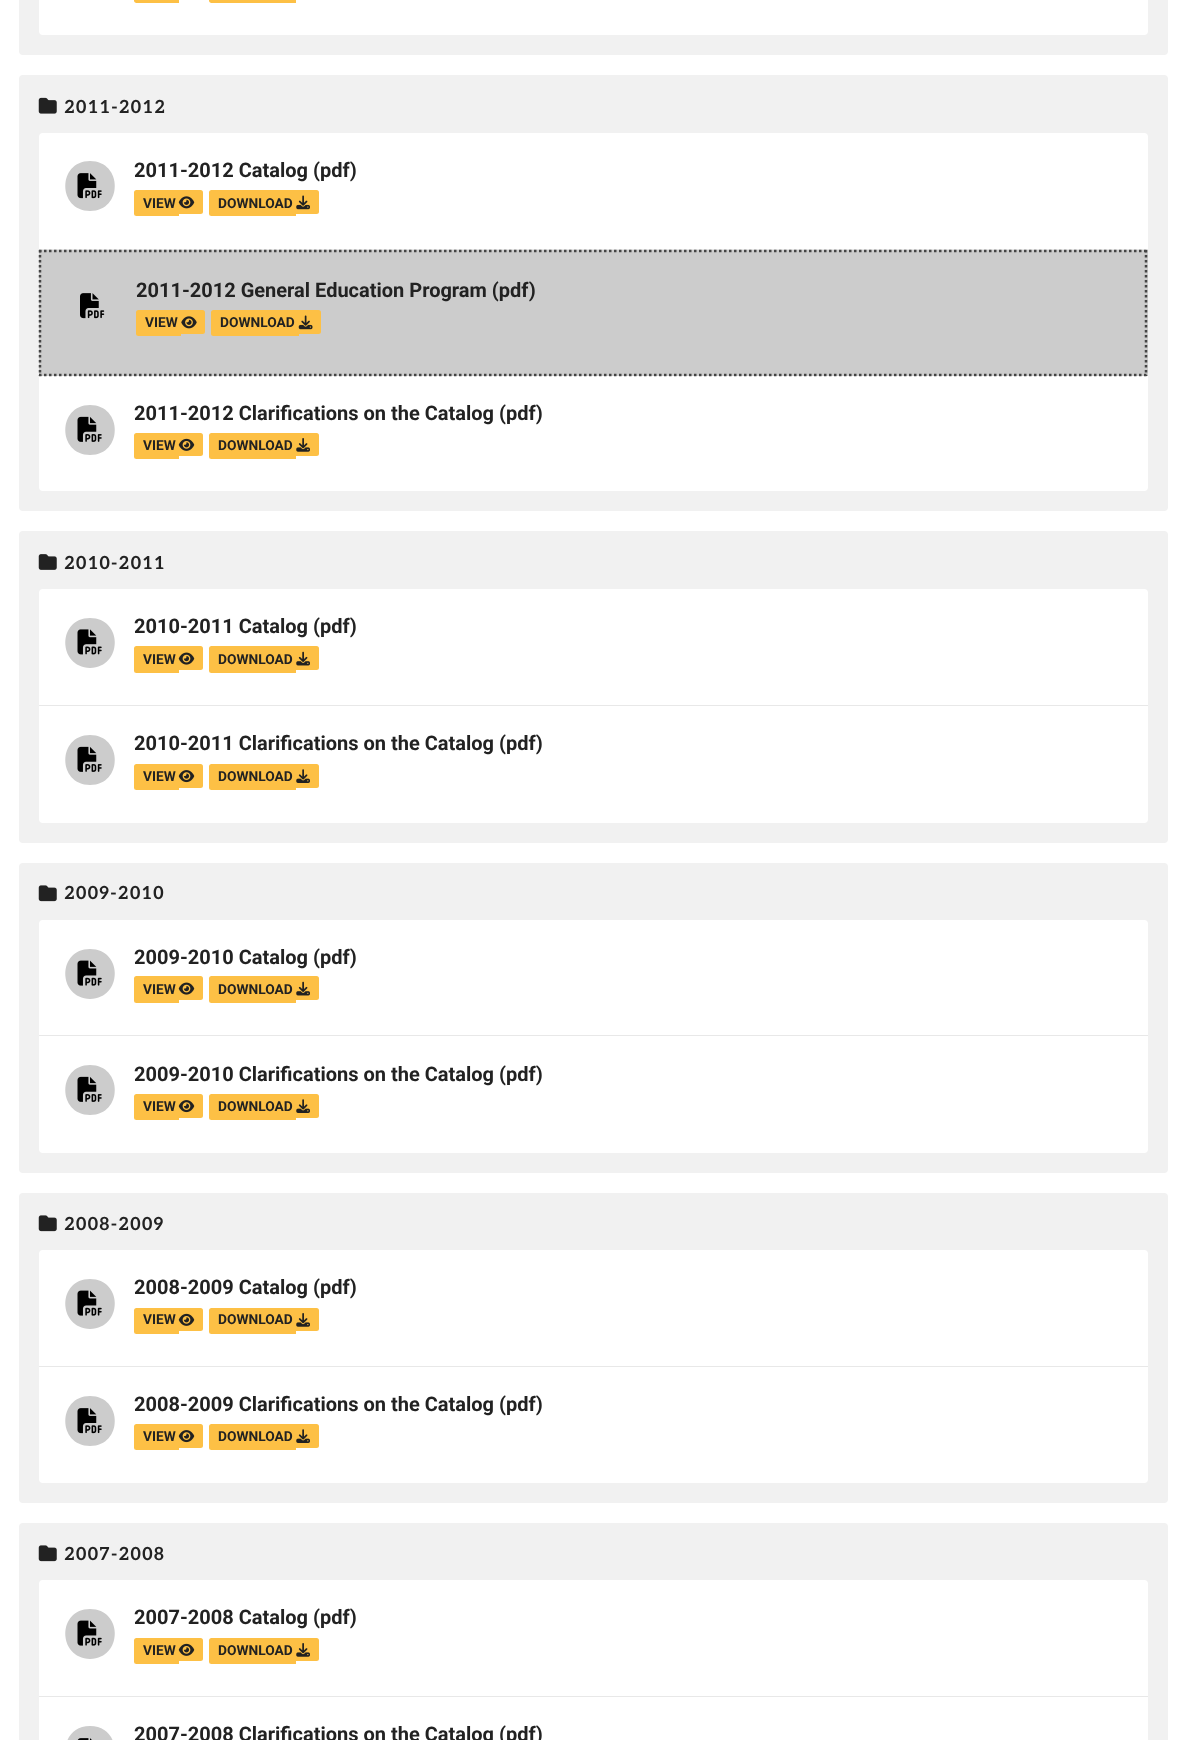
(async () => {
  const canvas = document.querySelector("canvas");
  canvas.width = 1186;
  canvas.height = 1740;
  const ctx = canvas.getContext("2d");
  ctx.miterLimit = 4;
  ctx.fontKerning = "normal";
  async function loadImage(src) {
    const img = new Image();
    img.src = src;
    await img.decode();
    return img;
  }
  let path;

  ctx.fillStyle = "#ffffff";
  ctx.fillRect(0, 0, 1186, 1740);
  ctx.fillStyle = "#f1f1f1";
  ctx.beginPath();
  ctx.roundRect(19, -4, 1149, 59, 4);
  ctx.fill();
  ctx.fillStyle = "#ffffff";
  ctx.beginPath();
  ctx.roundRect(39, -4, 1109, 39, 4);
  ctx.fill();
  ctx.fillStyle = "#fdc045";
  path = new Path2D("M136.5-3H179V3H136.5C135 3 134 2 134 .5V-.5C134-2 135-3 136.5-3Z");
  ctx.fill(path);
  path = new Path2D("M211.5-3H296V3H211.5C210 3 209 2 209 .5V-.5C209-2 210-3 211.5-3Z");
  ctx.fill(path);
  ctx.fillStyle = "#f1f1f1";
  ctx.beginPath();
  ctx.roundRect(19, 75, 1149, 436, 4);
  ctx.fill();
  ctx.drawImage(await loadImage("img/1.png"), 38, 97, 19, 17);
  ctx.fillStyle = "#ffffff";
  ctx.beginPath();
  ctx.roundRect(39, 133, 1109, 358, 4);
  ctx.fill();
  ctx.fillStyle = "#e8e8e8";
  ctx.fillRect(39, 249, 1109, 1);
  ctx.fillStyle = "#cccccc";
  path = new Path2D("M90 211C123 211 123 161 90 161C57 161 57 211 90 211Z");
  ctx.fill(path);
  ctx.drawImage(await loadImage("img/2.png"), 77, 173, 25, 26);
  ctx.fillStyle = "#fdc045";
  ctx.beginPath();
  ctx.roundRect(134, 190, 45, 26, [2.5, 0, 0, 2.5]);
  ctx.fill();
  ctx.beginPath();
  ctx.roundRect(179, 190, 24, 24, [0, 2.5, 2.5, 0]);
  ctx.fill();
  ctx.drawImage(await loadImage("img/3.png"), 178, 196, 17, 13);
  ctx.beginPath();
  ctx.roundRect(209, 190, 87, 26, [2.5, 0, 0, 2.5]);
  ctx.fill();
  ctx.beginPath();
  ctx.roundRect(296, 190, 23, 24, [0, 2.5, 2.5, 0]);
  ctx.fill();
  ctx.drawImage(await loadImage("img/4.png"), 296, 195, 14, 15);
  ctx.fillStyle = "#cccccc";
  ctx.fillRect(39, 250, 1109, 126);
  path = new Path2D("M39 251H1147.5");
  ctx.strokeStyle = "#444444";
  ctx.lineWidth = 2.5;
  ctx.setLineDash([2.5, 2.5]);
  ctx.stroke(path);
  path = new Path2D("M1146 250V376");
  ctx.stroke(path);
  path = new Path2D("M39 375H1147.5");
  ctx.stroke(path);
  path = new Path2D("M40 250V376");
  ctx.stroke(path);
  ctx.drawImage(await loadImage("img/5.png"), 80, 293, 25, 26);
  ctx.fillStyle = "#fdc045";
  ctx.beginPath();
  ctx.roundRect(136, 310, 45, 26, [2.5, 0, 0, 2.5]);
  ctx.fill();
  ctx.beginPath();
  ctx.roundRect(181, 310, 24, 24, [0, 2.5, 2.5, 0]);
  ctx.fill();
  ctx.drawImage(await loadImage("img/6.png"), 181, 316, 16, 13);
  ctx.beginPath();
  ctx.roundRect(211, 310, 88, 26, [2.5, 0, 0, 2.5]);
  ctx.fill();
  ctx.beginPath();
  ctx.roundRect(299, 310, 22, 24, [0, 2.5, 2.5, 0]);
  ctx.fill();
  ctx.drawImage(await loadImage("img/7.png"), 298, 315, 15, 15);
  ctx.fillStyle = "#cccccc";
  path = new Path2D("M90 455C123 455 123 405 90 405C57 405 57 455 90 455Z");
  ctx.fill(path);
  ctx.drawImage(await loadImage("img/8.png"), 77, 416, 25, 26);
  ctx.fillStyle = "#fdc045";
  ctx.beginPath();
  ctx.roundRect(134, 433, 45, 26, [2.5, 0, 0, 2.5]);
  ctx.fill();
  ctx.beginPath();
  ctx.roundRect(179, 433, 24, 23, [0, 2.5, 2.5, 0]);
  ctx.fill();
  ctx.drawImage(await loadImage("img/9.png"), 178, 438, 17, 13);
  ctx.beginPath();
  ctx.roundRect(209, 433, 87, 26, [2.5, 0, 0, 2.5]);
  ctx.fill();
  ctx.beginPath();
  ctx.roundRect(296, 433, 23, 23, [0, 2.5, 2.5, 0]);
  ctx.fill();
  ctx.drawImage(await loadImage("img/10.png"), 296, 438, 14, 14);
  ctx.fillStyle = "#f1f1f1";
  ctx.beginPath();
  ctx.roundRect(19, 531, 1149, 312, 4);
  ctx.fill();
  ctx.drawImage(await loadImage("img/11.png"), 38, 554, 19, 16);
  ctx.fillStyle = "#ffffff";
  ctx.beginPath();
  ctx.roundRect(39, 589, 1109, 234, 4);
  ctx.fill();
  ctx.fillStyle = "#e8e8e8";
  ctx.fillRect(39, 705, 1109, 1);
  ctx.fillStyle = "#cccccc";
  path = new Path2D("M90 668C123 667 123 618 90 618C57 618 57 667 90 668Z");
  ctx.fill(path);
  ctx.drawImage(await loadImage("img/12.png"), 77, 629, 25, 26);
  ctx.fillStyle = "#fdc045";
  ctx.beginPath();
  ctx.roundRect(134, 646, 45, 27, [2.5, 0, 0, 2.5]);
  ctx.fill();
  ctx.beginPath();
  ctx.roundRect(179, 646, 24, 24, [0, 2.5, 2.5, 0]);
  ctx.fill();
  ctx.drawImage(await loadImage("img/13.png"), 178, 652, 17, 13);
  ctx.beginPath();
  ctx.roundRect(209, 646, 87, 27, [2.5, 0, 0, 2.5]);
  ctx.fill();
  ctx.beginPath();
  ctx.roundRect(296, 646, 23, 24, [0, 2.5, 2.5, 0]);
  ctx.fill();
  ctx.drawImage(await loadImage("img/14.png"), 296, 651, 14, 15);
  ctx.fillStyle = "#cccccc";
  path = new Path2D("M90 785C123 785 123 735 90 735C57 735 57 785 90 785Z");
  ctx.fill(path);
  ctx.drawImage(await loadImage("img/8.png"), 77, 746, 25, 26);
  ctx.fillStyle = "#fdc045";
  ctx.beginPath();
  ctx.roundRect(134, 764, 45, 26, [2.5, 0, 0, 2.5]);
  ctx.fill();
  ctx.beginPath();
  ctx.roundRect(179, 764, 24, 24, [0, 2.5, 2.5, 0]);
  ctx.fill();
  ctx.drawImage(await loadImage("img/15.png"), 178, 770, 17, 13);
  ctx.beginPath();
  ctx.roundRect(209, 764, 87, 26, [2.5, 0, 0, 2.5]);
  ctx.fill();
  ctx.beginPath();
  ctx.roundRect(296, 764, 23, 24, [0, 2.5, 2.5, 0]);
  ctx.fill();
  ctx.drawImage(await loadImage("img/16.png"), 296, 769, 14, 14);
  ctx.fillStyle = "#f1f1f1";
  ctx.beginPath();
  ctx.roundRect(19, 863, 1149, 310, 4);
  ctx.fill();
  ctx.drawImage(await loadImage("img/17.png"), 38, 885, 19, 17);
  ctx.fillStyle = "#ffffff";
  ctx.beginPath();
  ctx.roundRect(39, 920, 1109, 233, 4);
  ctx.fill();
  ctx.fillStyle = "#e8e8e8";
  ctx.fillRect(39, 1035, 1109, 1);
  ctx.fillStyle = "#cccccc";
  path = new Path2D("M90 999C123 998 123 949 90 949C57 949 57 998 90 999Z");
  ctx.fill(path);
  ctx.drawImage(await loadImage("img/18.png"), 77, 960, 25, 26);
  ctx.fillStyle = "#fdc045";
  ctx.beginPath();
  ctx.roundRect(134, 976, 45, 27, [2.5, 0, 0, 2.5]);
  ctx.fill();
  ctx.beginPath();
  ctx.roundRect(179, 976, 24, 24, [0, 2.5, 2.5, 0]);
  ctx.fill();
  ctx.drawImage(await loadImage("img/13.png"), 178, 982, 17, 13);
  ctx.beginPath();
  ctx.roundRect(209, 976, 87, 27, [2.5, 0, 0, 2.5]);
  ctx.fill();
  ctx.beginPath();
  ctx.roundRect(296, 976, 23, 24, [0, 2.5, 2.5, 0]);
  ctx.fill();
  ctx.drawImage(await loadImage("img/14.png"), 296, 981, 14, 15);
  ctx.fillStyle = "#cccccc";
  path = new Path2D("M90 1115C123 1115 123 1065 90 1065C57 1065 57 1115 90 1115Z");
  ctx.fill(path);
  ctx.drawImage(await loadImage("img/8.png"), 77, 1076, 25, 26);
  ctx.fillStyle = "#fdc045";
  ctx.beginPath();
  ctx.roundRect(134, 1094, 45, 26, [2.5, 0, 0, 2.5]);
  ctx.fill();
  ctx.beginPath();
  ctx.roundRect(179, 1094, 24, 24, [0, 2.5, 2.5, 0]);
  ctx.fill();
  ctx.drawImage(await loadImage("img/15.png"), 178, 1100, 17, 13);
  ctx.beginPath();
  ctx.roundRect(209, 1094, 87, 26, [2.5, 0, 0, 2.5]);
  ctx.fill();
  ctx.beginPath();
  ctx.roundRect(296, 1094, 23, 24, [0, 2.5, 2.5, 0]);
  ctx.fill();
  ctx.drawImage(await loadImage("img/16.png"), 296, 1099, 14, 14);
  ctx.fillStyle = "#f1f1f1";
  ctx.beginPath();
  ctx.roundRect(19, 1193, 1149, 310, 4);
  ctx.fill();
  ctx.drawImage(await loadImage("img/17.png"), 38, 1215, 19, 17);
  ctx.fillStyle = "#ffffff";
  ctx.beginPath();
  ctx.roundRect(39, 1250, 1109, 233, 4);
  ctx.fill();
  ctx.fillStyle = "#e8e8e8";
  ctx.fillRect(39, 1366, 1109, 1);
  ctx.fillStyle = "#cccccc";
  path = new Path2D("M90 1329C123 1328 123 1279 90 1279C57 1279 57 1328 90 1329Z");
  ctx.fill(path);
  ctx.drawImage(await loadImage("img/18.png"), 77, 1290, 25, 26);
  ctx.fillStyle = "#fdc045";
  ctx.beginPath();
  ctx.roundRect(134, 1308, 45, 26, [2.5, 0, 0, 2.5]);
  ctx.fill();
  ctx.beginPath();
  ctx.roundRect(179, 1308, 24, 23, [0, 2.5, 2.5, 0]);
  ctx.fill();
  ctx.drawImage(await loadImage("img/9.png"), 178, 1313, 17, 13);
  ctx.beginPath();
  ctx.roundRect(209, 1308, 87, 26, [2.5, 0, 0, 2.5]);
  ctx.fill();
  ctx.beginPath();
  ctx.roundRect(296, 1308, 23, 23, [0, 2.5, 2.5, 0]);
  ctx.fill();
  ctx.drawImage(await loadImage("img/10.png"), 296, 1313, 14, 14);
  ctx.fillStyle = "#cccccc";
  path = new Path2D("M90 1446C123 1446 123 1396 90 1396C57 1396 57 1446 90 1446Z");
  ctx.fill(path);
  ctx.drawImage(await loadImage("img/2.png"), 77, 1408, 25, 26);
  ctx.fillStyle = "#fdc045";
  ctx.beginPath();
  ctx.roundRect(134, 1424, 45, 26, [2.5, 0, 0, 2.5]);
  ctx.fill();
  ctx.beginPath();
  ctx.roundRect(179, 1424, 24, 24, [0, 2.5, 2.5, 0]);
  ctx.fill();
  ctx.drawImage(await loadImage("img/15.png"), 178, 1430, 17, 13);
  ctx.beginPath();
  ctx.roundRect(209, 1424, 87, 26, [2.5, 0, 0, 2.5]);
  ctx.fill();
  ctx.beginPath();
  ctx.roundRect(296, 1424, 23, 24, [0, 2.5, 2.5, 0]);
  ctx.fill();
  ctx.drawImage(await loadImage("img/16.png"), 296, 1429, 14, 14);
  ctx.fillStyle = "#f1f1f1";
  ctx.beginPath();
  ctx.roundRect(19, 1523, 1149, 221, 4);
  ctx.fill();
  ctx.drawImage(await loadImage("img/17.png"), 38, 1545, 19, 17);
  ctx.fillStyle = "#ffffff";
  ctx.beginPath();
  ctx.roundRect(39, 1580, 1109, 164, 4);
  ctx.fill();
  ctx.fillStyle = "#e8e8e8";
  ctx.fillRect(39, 1696, 1109, 1);
  ctx.fillStyle = "#cccccc";
  path = new Path2D("M90 1659C123 1658 123 1609 90 1609C57 1609 57 1658 90 1659Z");
  ctx.fill(path);
  ctx.drawImage(await loadImage("img/18.png"), 77, 1620, 25, 26);
  ctx.fillStyle = "#fdc045";
  ctx.beginPath();
  ctx.roundRect(134, 1638, 45, 26, [2.5, 0, 0, 2.5]);
  ctx.fill();
  ctx.beginPath();
  ctx.roundRect(179, 1638, 24, 23, [0, 2.5, 2.5, 0]);
  ctx.fill();
  ctx.drawImage(await loadImage("img/9.png"), 178, 1643, 17, 13);
  ctx.beginPath();
  ctx.roundRect(209, 1638, 87, 26, [2.5, 0, 0, 2.5]);
  ctx.fill();
  ctx.beginPath();
  ctx.roundRect(296, 1638, 23, 23, [0, 2.5, 2.5, 0]);
  ctx.fill();
  ctx.drawImage(await loadImage("img/10.png"), 296, 1643, 14, 14);
  ctx.fillStyle = "#cccccc";
  path = new Path2D("M90 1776C123 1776 123 1726 90 1726C57 1726 57 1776 90 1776Z");
  ctx.fill(path);
  ctx.drawImage(await loadImage("img/19.png"), 77, 1738, 15, 2);
  ctx.letterSpacing = "1.25px";
  ctx.font = "bold 18px Aleo";
  ctx.fillStyle = "#222222";
  ctx.fillText("2011-2012", 64, 113);
  ctx.letterSpacing = "0px";
  ctx.font = "bold 20px Roboto";
  ctx.fillText("2011-2012 Catalog (pdf)", 134, 177);
  ctx.font = "bold 13.75px Roboto";
  ctx.fillText("VIEW", 143, 208);
  ctx.fillText("DOWNLOAD", 218, 208);
  ctx.font = "bold 20px Roboto";
  ctx.fillText("2011-2012 General Education Program (pdf)", 136, 297);
  ctx.font = "bold 13.75px Roboto";
  ctx.fillText("VIEW", 145, 327);
  ctx.fillText("DOWNLOAD", 220, 327);
  ctx.font = "bold 20px Roboto";
  ctx.fillText("2011-2012 Clarifications on the Catalog (pdf)", 134, 420);
  ctx.font = "bold 13.75px Roboto";
  ctx.fillText("VIEW", 143, 450);
  ctx.fillText("DOWNLOAD", 218, 450);
  ctx.letterSpacing = "1.25px";
  ctx.font = "bold 18px Aleo";
  ctx.fillText("2010-2011", 64, 569);
  ctx.letterSpacing = "0px";
  ctx.font = "bold 20px Roboto";
  ctx.fillText("2010-2011 Catalog (pdf)", 134, 633);
  ctx.font = "bold 13.75px Roboto";
  ctx.fillText("VIEW", 143, 664);
  ctx.fillText("DOWNLOAD", 218, 664);
  ctx.font = "bold 20px Roboto";
  ctx.fillText("2010-2011 Clarifications on the Catalog (pdf)", 134, 750);
  ctx.font = "bold 13.75px Roboto";
  ctx.fillText("VIEW", 143, 781);
  ctx.fillText("DOWNLOAD", 218, 781);
  ctx.letterSpacing = "1.25px";
  ctx.font = "bold 18px Aleo";
  ctx.fillText("2009-2010", 64, 899);
  ctx.letterSpacing = "0px";
  ctx.font = "bold 20px Roboto";
  ctx.fillText("2009-2010 Catalog (pdf)", 134, 964);
  ctx.font = "bold 13.75px Roboto";
  ctx.fillText("VIEW", 143, 994);
  ctx.fillText("DOWNLOAD", 218, 994);
  ctx.font = "bold 20px Roboto";
  ctx.fillText("2009-2010 Clarifications on the Catalog (pdf)", 134, 1081);
  ctx.font = "bold 13.75px Roboto";
  ctx.fillText("VIEW", 143, 1111);
  ctx.fillText("DOWNLOAD", 218, 1111);
  ctx.letterSpacing = "1.25px";
  ctx.font = "bold 18px Aleo";
  ctx.fillText("2008-2009", 64, 1230);
  ctx.letterSpacing = "0px";
  ctx.font = "bold 20px Roboto";
  ctx.fillText("2008-2009 Catalog (pdf)", 134, 1294);
  ctx.font = "bold 13.75px Roboto";
  ctx.fillText("VIEW", 143, 1324);
  ctx.fillText("DOWNLOAD", 218, 1324);
  ctx.font = "bold 20px Roboto";
  ctx.fillText("2008-2009 Clarifications on the Catalog (pdf)", 134, 1411);
  ctx.font = "bold 13.75px Roboto";
  ctx.fillText("VIEW", 143, 1441);
  ctx.fillText("DOWNLOAD", 218, 1441);
  ctx.letterSpacing = "1.25px";
  ctx.font = "bold 18px Aleo";
  ctx.fillText("2007-2008", 64, 1560);
  ctx.letterSpacing = "0px";
  ctx.font = "bold 20px Roboto";
  ctx.fillText("2007-2008 Catalog (pdf)", 134, 1624);
  ctx.font = "bold 13.75px Roboto";
  ctx.fillText("VIEW", 143, 1655);
  ctx.fillText("DOWNLOAD", 218, 1655);
  ctx.font = "bold 20px Roboto";
  ctx.fillText("2007-2008 Clarifications on the Catalog (pdf)", 134, 1741);
})();
